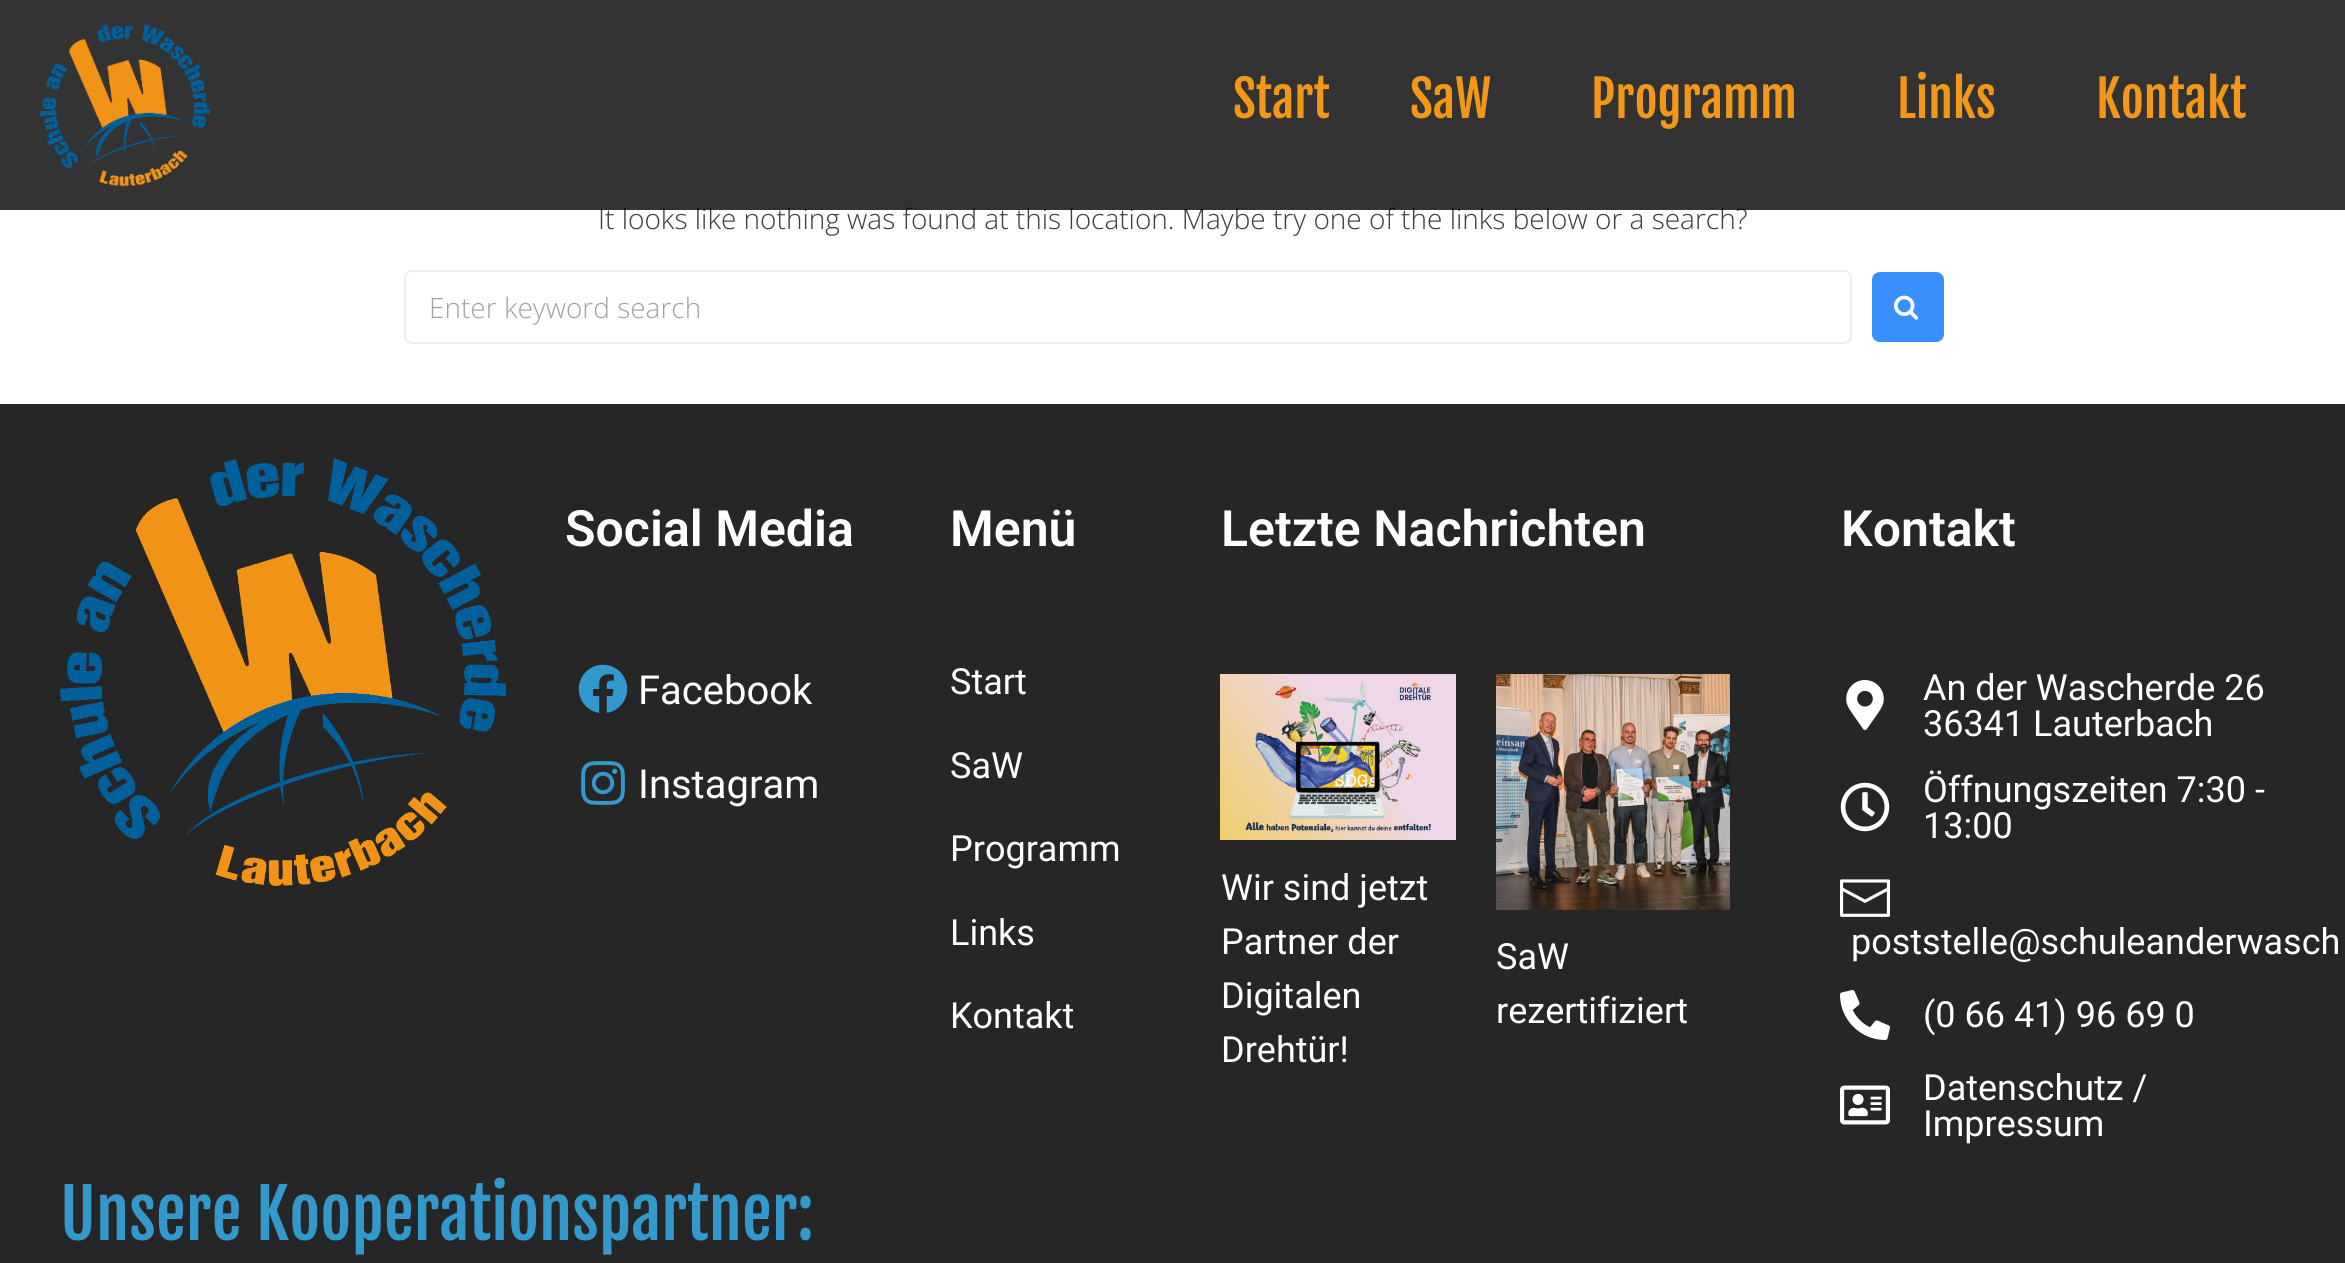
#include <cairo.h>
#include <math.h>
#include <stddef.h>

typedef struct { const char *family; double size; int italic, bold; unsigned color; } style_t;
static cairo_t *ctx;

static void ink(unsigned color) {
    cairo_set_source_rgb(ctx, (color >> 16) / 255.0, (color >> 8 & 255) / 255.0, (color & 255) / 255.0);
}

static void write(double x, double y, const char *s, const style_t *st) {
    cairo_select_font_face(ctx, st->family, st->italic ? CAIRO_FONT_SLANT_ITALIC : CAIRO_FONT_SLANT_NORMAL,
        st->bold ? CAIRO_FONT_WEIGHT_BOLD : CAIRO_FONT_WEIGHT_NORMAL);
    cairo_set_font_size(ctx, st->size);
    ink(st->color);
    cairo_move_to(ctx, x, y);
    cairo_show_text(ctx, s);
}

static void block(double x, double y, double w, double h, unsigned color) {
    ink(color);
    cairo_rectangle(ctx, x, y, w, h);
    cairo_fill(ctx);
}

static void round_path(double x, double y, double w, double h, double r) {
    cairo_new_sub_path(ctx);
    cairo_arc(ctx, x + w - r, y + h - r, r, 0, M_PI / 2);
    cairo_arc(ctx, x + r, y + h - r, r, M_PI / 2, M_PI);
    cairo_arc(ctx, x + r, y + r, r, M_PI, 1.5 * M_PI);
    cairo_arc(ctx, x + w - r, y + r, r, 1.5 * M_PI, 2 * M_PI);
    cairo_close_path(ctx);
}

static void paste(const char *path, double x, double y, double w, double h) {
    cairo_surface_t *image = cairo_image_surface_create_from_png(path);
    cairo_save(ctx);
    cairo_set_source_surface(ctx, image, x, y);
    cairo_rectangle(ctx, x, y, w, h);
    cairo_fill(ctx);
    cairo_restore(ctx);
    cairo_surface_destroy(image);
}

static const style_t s1 = {"Open Sans Light", 28, 0, 0, 0x3b3d42};
static const style_t s2 = {"Fjalla One", 50, 0, 0, 0xf29718};
static const style_t s3 = {"Open Sans Light", 28, 0, 0, 0xa1a2a4};
static const style_t s4 = {"Roboto SemiBold", 50, 0, 0, 0xffffff};
static const style_t s5 = {"Roboto", 40, 0, 0, 0xffffff};
static const style_t s6 = {"Roboto", 36, 0, 0, 0xffffff};
static const style_t s7 = {"Fjalla One", 67.25, 0, 0, 0x3399cc};

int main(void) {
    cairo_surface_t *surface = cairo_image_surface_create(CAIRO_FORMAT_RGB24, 2345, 1263);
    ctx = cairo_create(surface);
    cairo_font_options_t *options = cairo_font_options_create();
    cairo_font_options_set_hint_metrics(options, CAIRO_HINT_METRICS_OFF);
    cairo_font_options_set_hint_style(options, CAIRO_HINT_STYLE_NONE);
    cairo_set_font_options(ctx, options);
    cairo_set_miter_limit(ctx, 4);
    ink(0xffffff);
    cairo_paint(ctx);
    write(598, 229, "It looks like nothing was found at this location. Maybe try one of the links below or a search?", &s1);
    cairo_set_source_rgba(ctx, 0, 0, 0, 0.8);
    cairo_rectangle(ctx, 0, 0, 2345, 210);
    cairo_fill(ctx);
    paste("pic1.png", 40, 24, 170, 163);
    write(1233, 118, "Start", &s2);
    write(1410, 118, "SaW", &s2);
    write(1591, 118, "Programm", &s2);
    write(1897, 118, "Links", &s2);
    write(2096, 118, "Kontakt", &s2);
    round_path(405, 271, 1446, 72, 7);
    ink(0xebeced);
    cairo_stroke(ctx);
    write(429, 318, "Enter keyword search", &s3);
    ink(0x398ffc);
    round_path(1872, 272, 72, 70, 8);
    cairo_fill(ctx);
    paste("pic2.png", 1894, 295, 25, 25);
    block(0, 404, 2345, 859, 0x262626);
    paste("pic3.png", 60, 458, 446, 428);
    write(565, 546, "Social Media", &s4);
    paste("pic4.png", 578, 664, 50, 49);
    write(638, 704, "Facebook", &s5);
    paste("pic5.png", 581, 761, 44, 44);
    write(638, 798, "Instagram", &s5);
    write(950, 546, "Menü", &s4);
    write(950, 694, "Start", &s6);
    write(950, 778, "SaW", &s6);
    write(950, 861, "Programm", &s6);
    write(950, 945, "Links", &s6);
    write(950, 1028, "Kontakt", &s6);
    write(1221, 546, "Letzte Nachrichten", &s4);
    paste("pic6.png", 1220, 674, 236, 166);
    write(1221, 900, "Wir sind jetzt", &s6);
    write(1221, 954, "Partner der", &s6);
    write(1221, 1008, "Digitalen", &s6);
    write(1221, 1062, "Drehtür!", &s6);
    paste("pic7.png", 1496, 674, 234, 236);
    write(1496, 969, "SaW", &s6);
    write(1496, 1023, "rezertifiziert", &s6);
    write(1841, 546, "Kontakt", &s4);
    paste("pic8.png", 1846, 680, 38, 50);
    write(1923, 700, "An der Wascherde 26", &s6);
    write(1923, 736, "36341 Lauterbach", &s6);
    paste("pic9.png", 1840, 782, 50, 50);
    write(1923, 802, "Öffnungszeiten 7:30 -", &s6);
    write(1923, 838, "13:00", &s6);
    paste("pic10.png", 1840, 879, 50, 38);
    write(1851, 954, "poststelle@schuleanderwasch", &s6);
    paste("pic11.png", 1840, 990, 50, 50);
    write(1923, 1027, "(0 66 41) 96 69 0", &s6);
    paste("pic12.png", 1840, 1085, 50, 40);
    write(1923, 1100, "Datenschutz /", &s6);
    write(1923, 1136, "Impressum", &s6);
    write(60, 1240, "Unsere Kooperationspartner:", &s7);
    cairo_surface_write_to_png(surface, "screenshot.png");
    cairo_font_options_destroy(options);
    cairo_destroy(ctx);
    cairo_surface_destroy(surface);
    return 0;
}
